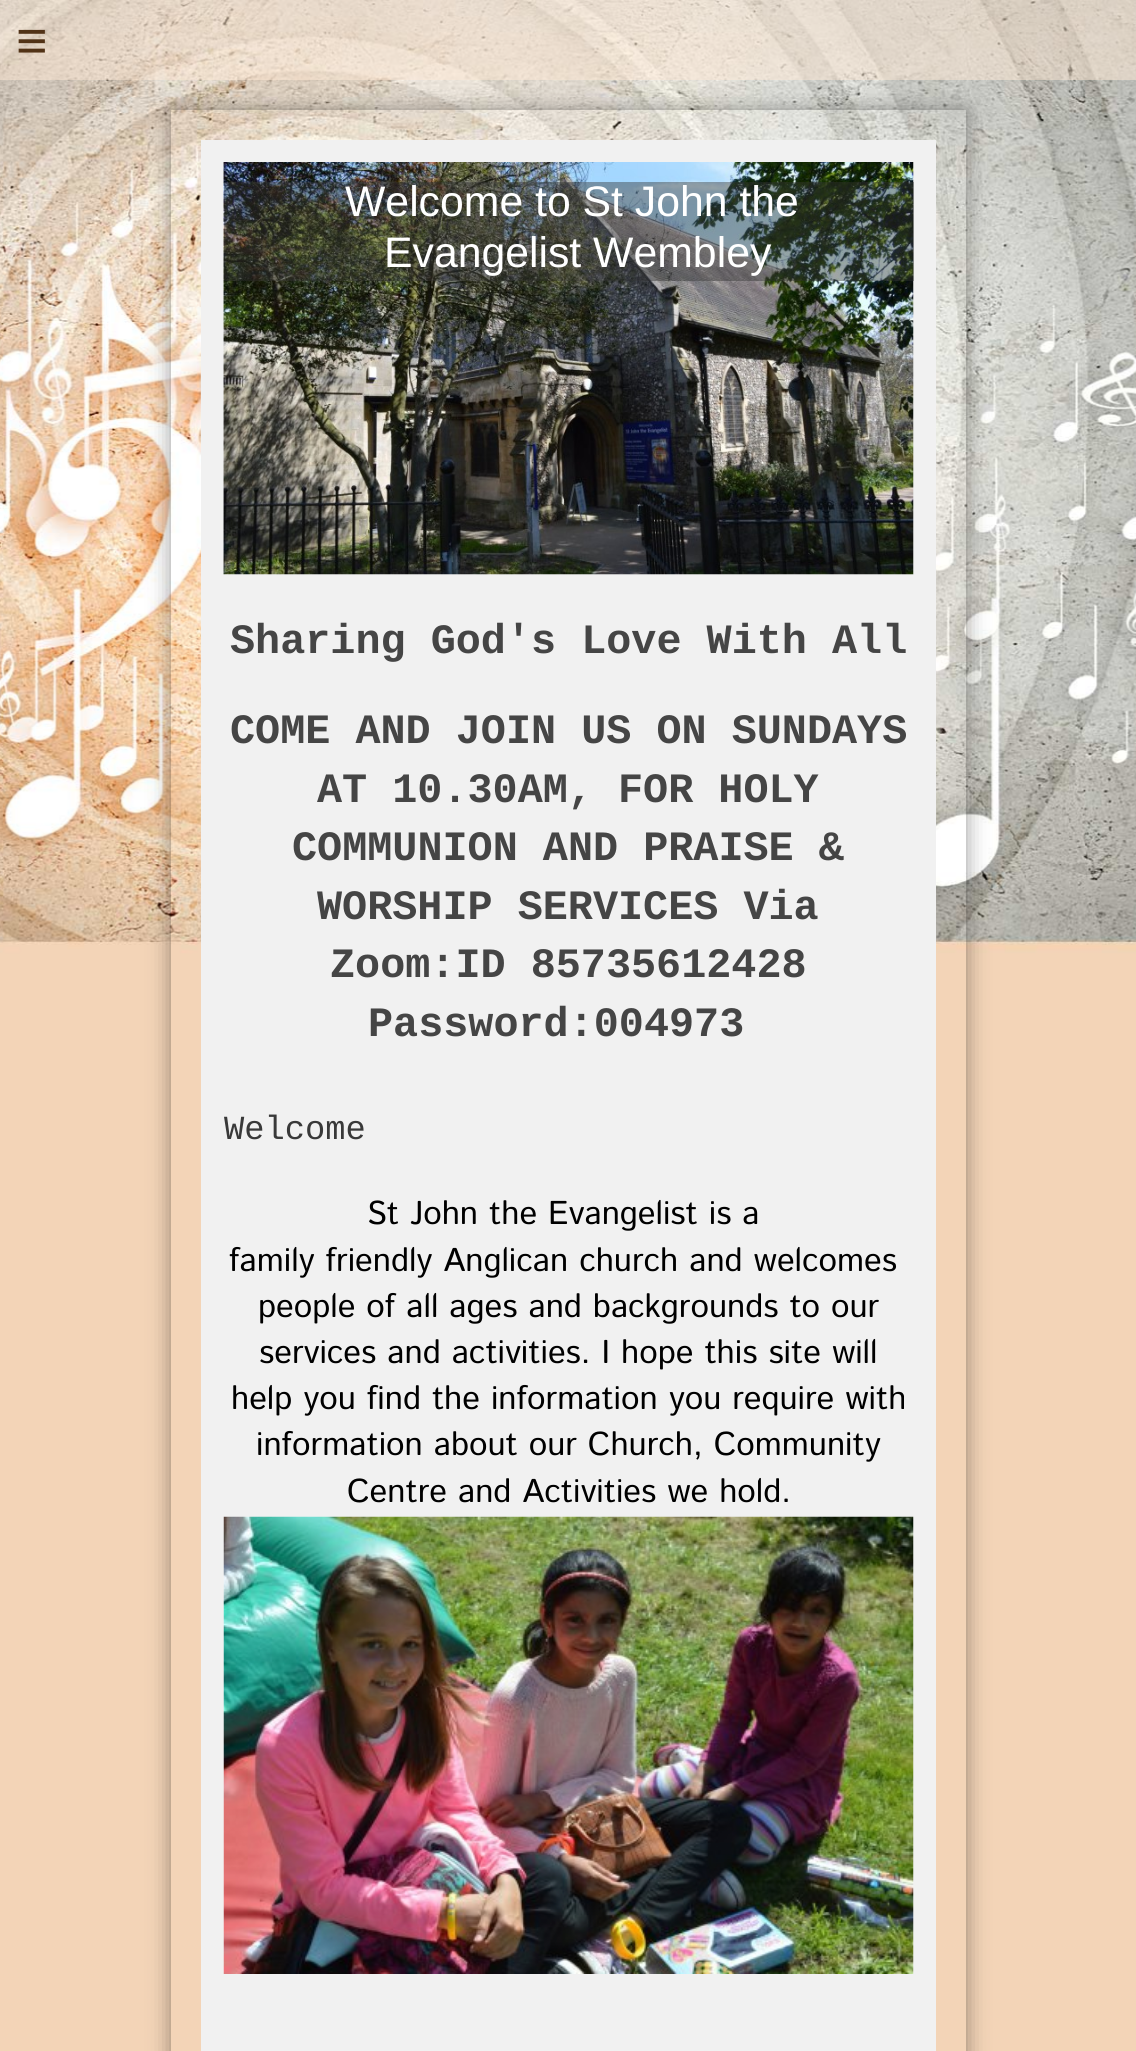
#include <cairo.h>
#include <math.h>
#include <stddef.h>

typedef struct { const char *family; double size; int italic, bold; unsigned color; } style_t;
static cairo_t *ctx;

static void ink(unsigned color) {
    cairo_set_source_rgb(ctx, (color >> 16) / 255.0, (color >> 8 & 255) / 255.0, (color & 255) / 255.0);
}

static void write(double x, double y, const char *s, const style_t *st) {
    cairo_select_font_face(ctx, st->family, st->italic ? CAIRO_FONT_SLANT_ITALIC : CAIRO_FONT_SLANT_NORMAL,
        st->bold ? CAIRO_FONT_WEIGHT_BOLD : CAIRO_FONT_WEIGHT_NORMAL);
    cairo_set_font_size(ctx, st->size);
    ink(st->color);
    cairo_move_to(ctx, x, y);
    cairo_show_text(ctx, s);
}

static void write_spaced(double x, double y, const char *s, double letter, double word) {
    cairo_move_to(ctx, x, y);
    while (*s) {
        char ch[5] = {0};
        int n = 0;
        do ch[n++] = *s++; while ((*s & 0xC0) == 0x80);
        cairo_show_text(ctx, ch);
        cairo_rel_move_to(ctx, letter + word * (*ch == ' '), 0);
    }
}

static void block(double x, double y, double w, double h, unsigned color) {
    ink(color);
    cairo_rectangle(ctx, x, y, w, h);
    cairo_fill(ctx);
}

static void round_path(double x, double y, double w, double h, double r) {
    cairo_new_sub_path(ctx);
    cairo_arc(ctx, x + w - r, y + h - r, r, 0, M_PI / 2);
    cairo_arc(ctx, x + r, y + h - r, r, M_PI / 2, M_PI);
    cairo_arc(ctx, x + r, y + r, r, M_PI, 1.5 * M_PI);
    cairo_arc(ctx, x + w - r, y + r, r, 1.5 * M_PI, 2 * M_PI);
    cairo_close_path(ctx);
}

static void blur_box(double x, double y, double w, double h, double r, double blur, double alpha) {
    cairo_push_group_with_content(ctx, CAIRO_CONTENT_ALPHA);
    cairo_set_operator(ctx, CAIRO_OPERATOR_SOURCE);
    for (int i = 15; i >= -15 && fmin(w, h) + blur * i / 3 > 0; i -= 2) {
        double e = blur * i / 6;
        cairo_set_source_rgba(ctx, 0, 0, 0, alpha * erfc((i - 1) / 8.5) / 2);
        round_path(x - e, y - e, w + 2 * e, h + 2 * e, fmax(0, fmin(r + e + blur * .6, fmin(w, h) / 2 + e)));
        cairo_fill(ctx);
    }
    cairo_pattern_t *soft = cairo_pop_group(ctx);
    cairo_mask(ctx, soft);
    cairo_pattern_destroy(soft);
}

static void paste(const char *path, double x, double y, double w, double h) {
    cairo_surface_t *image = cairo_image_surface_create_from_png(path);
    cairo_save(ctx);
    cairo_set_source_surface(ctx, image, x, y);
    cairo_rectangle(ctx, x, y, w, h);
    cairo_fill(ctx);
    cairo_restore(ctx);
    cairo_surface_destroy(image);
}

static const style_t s1 = {"Liberation Sans", 42.75, 0, 0, 0xffffff};
static const style_t s2 = {"Liberation Mono", 41.8, 0, 1, 0x454545};
static const style_t s3 = {"Liberation Mono", 33.75, 0, 0, 0x393939};
static const style_t s4 = {"Istok Web", 33, 0, 0, 0x000000};

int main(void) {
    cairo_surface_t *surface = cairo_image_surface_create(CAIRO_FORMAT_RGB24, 1136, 2051);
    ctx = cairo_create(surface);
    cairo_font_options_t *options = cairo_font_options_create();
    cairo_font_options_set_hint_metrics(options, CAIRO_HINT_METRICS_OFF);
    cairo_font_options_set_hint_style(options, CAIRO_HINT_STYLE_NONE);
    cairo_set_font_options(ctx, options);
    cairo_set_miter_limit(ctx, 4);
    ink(0xffffff);
    cairo_paint(ctx);
    paste("pic1.png", 0, 0, 1136, 2051);
    cairo_set_source_rgba(ctx, 1, 0.918, 0.843, 0.5);
    cairo_rectangle(ctx, 0, 0, 1136, 80);
    cairo_fill(ctx);
    cairo_select_font_face(ctx, "Liberation Sans", CAIRO_FONT_SLANT_NORMAL, CAIRO_FONT_WEIGHT_NORMAL);
    cairo_set_font_size(ctx, 54);
    ink(0x513216);
    write_spaced(16, 59, "≡", 16, 0);
    cairo_save(ctx);
    cairo_set_fill_rule(ctx, CAIRO_FILL_RULE_EVEN_ODD);
    cairo_new_path(ctx);
    cairo_move_to(ctx, 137, 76);
    cairo_line_to(ctx, 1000, 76);
    cairo_line_to(ctx, 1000, 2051);
    cairo_line_to(ctx, 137, 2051);
    cairo_close_path(ctx);
    cairo_move_to(ctx, 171, 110);
    cairo_line_to(ctx, 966, 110);
    cairo_line_to(ctx, 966, 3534);
    cairo_line_to(ctx, 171, 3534);
    cairo_close_path(ctx);
    cairo_clip(ctx);
    ink(0x000000);
    blur_box(171, 110, 795, 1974, 0, 11, 0.4);
    cairo_restore(ctx);
    block(201, 140, 735, 1911, 0xf1f1f1);
    paste("pic2.png", 223, 162, 1, 413);
    block(224, 162, 690, 413, 0xeeeeee);
    paste("pic3.png", 223, 162, 691, 413);
    cairo_set_source_rgba(ctx, 0.2, 0.2, 0.2, 0.43);
    cairo_rectangle(ctx, 224, 182, 690, 99);
    cairo_fill(ctx);
    write(345, 216, "Welcome to St John the", &s1);
    write(384, 267, "Evangelist Wembley", &s1);
    write(230, 653, "Sharing God's Love With All", &s2);
    write(230, 743, "COME AND JOIN US ON SUNDAYS", &s2);
    write(317, 802, "AT 10.30AM, FOR HOLY", &s2);
    write(292, 860, "COMMUNION AND PRAISE &", &s2);
    write(317, 919, "WORSHIP SERVICES Via", &s2);
    write(330, 977, "Zoom:ID 85735612428", &s2);
    write(368, 1036, "Password:004973", &s2);
    write(224, 1139, "Welcome", &s3);
    write(367, 1224, "St John the Evangelist is a", &s4);
    write(229, 1271, "family friendly Anglican church and welcomes", &s4);
    write(258, 1317, "people of all ages and backgrounds to our", &s4);
    write(259, 1363, "services and activities. I hope this site will", &s4);
    write(231, 1409, "help you find the information you require with", &s4);
    write(256, 1455, "information about our Church, Community", &s4);
    write(347, 1502, "Centre and Activities we hold.", &s4);
    paste("pic4.png", 223, 1516, 691, 458);
    cairo_surface_write_to_png(surface, "screenshot.png");
    cairo_font_options_destroy(options);
    cairo_destroy(ctx);
    cairo_surface_destroy(surface);
    return 0;
}
